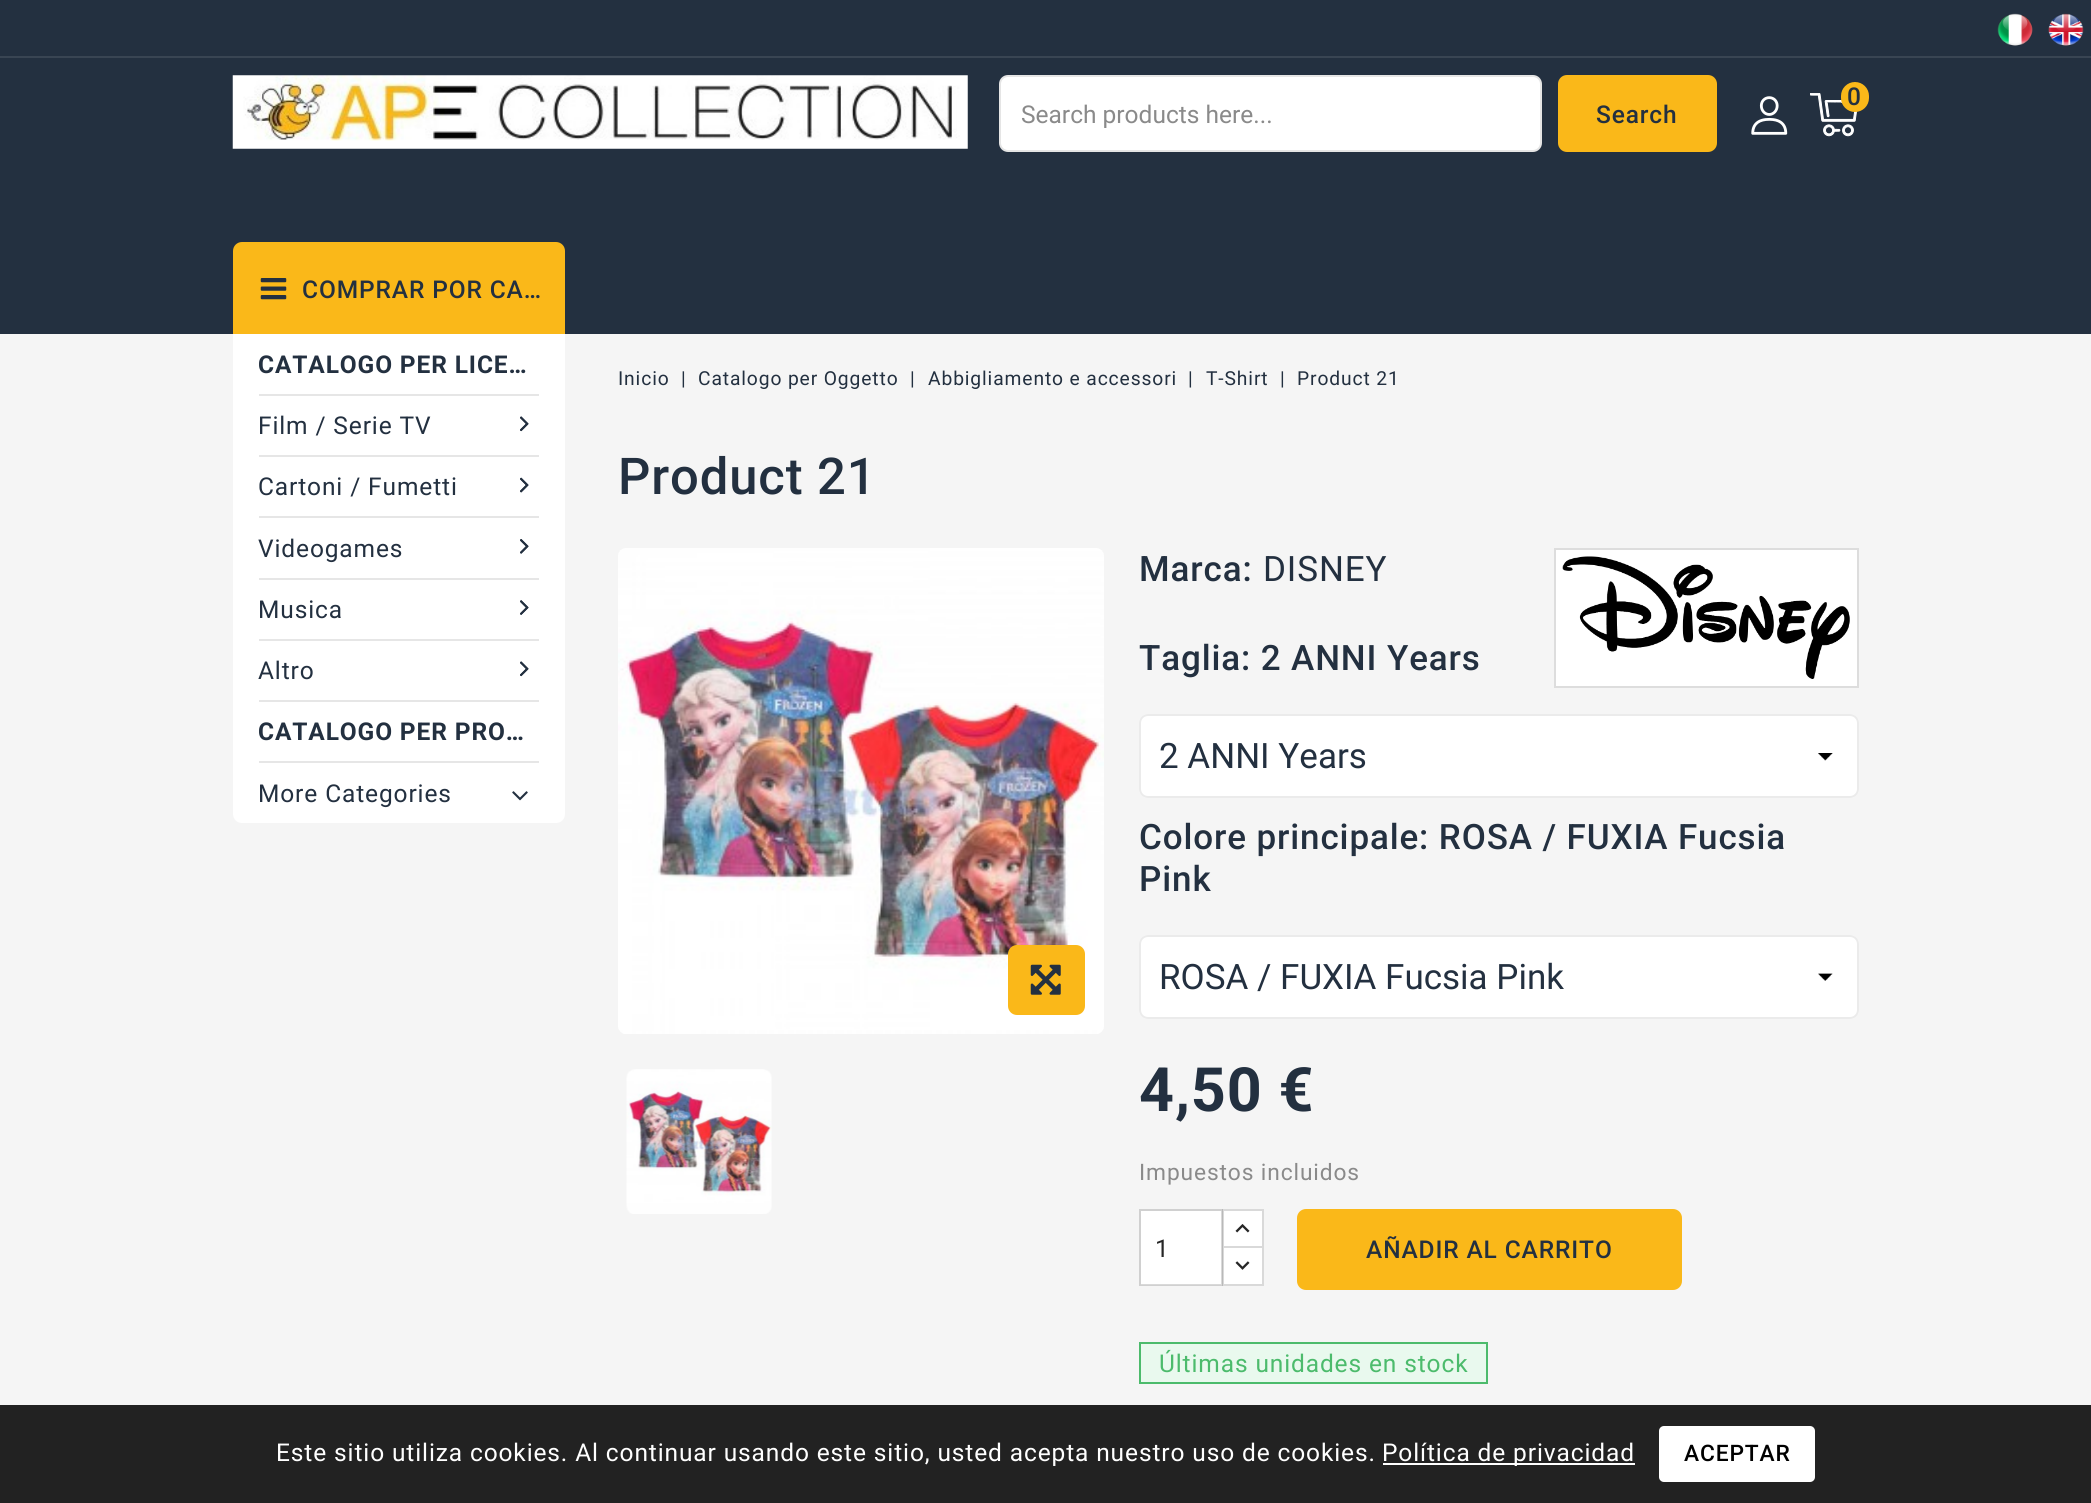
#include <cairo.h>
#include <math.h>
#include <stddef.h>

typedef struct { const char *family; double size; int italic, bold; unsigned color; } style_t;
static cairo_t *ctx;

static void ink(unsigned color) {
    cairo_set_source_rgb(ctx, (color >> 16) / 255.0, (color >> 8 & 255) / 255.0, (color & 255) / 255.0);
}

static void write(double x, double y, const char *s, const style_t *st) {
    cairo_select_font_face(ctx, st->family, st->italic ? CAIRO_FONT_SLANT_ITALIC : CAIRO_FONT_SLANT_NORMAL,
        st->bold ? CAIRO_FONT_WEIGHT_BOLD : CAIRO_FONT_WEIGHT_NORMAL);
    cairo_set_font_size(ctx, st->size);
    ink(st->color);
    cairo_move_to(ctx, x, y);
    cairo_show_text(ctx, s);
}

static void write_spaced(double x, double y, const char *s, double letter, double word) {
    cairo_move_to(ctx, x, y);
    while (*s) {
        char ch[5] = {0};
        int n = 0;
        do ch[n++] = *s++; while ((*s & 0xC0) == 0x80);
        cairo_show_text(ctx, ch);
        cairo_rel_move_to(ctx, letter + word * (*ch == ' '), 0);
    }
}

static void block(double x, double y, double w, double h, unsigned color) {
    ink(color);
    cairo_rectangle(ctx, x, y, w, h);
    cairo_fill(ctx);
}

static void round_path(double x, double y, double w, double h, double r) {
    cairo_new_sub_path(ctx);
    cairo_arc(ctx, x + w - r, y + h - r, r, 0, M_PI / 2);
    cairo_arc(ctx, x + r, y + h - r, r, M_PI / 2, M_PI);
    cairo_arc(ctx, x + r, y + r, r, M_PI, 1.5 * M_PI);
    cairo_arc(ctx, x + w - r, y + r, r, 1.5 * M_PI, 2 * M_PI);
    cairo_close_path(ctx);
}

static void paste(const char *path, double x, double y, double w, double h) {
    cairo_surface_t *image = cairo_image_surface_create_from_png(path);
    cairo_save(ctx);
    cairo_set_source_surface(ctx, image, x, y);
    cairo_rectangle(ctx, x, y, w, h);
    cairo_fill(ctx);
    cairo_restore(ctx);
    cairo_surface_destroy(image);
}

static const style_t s1 = {"Roboto", 24.5, 0, 0, 0x8a8a8a};
static const style_t s2 = {"Roboto Medium", 24.5, 0, 0, 0x233040};
static const style_t s3 = {"Roboto", 35, 0, 0, 0x233040};
static const style_t s4 = {"Roboto", 24.5, 0, 0, 0x262626};

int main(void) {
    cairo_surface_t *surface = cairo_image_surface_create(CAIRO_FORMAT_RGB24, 2091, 1503);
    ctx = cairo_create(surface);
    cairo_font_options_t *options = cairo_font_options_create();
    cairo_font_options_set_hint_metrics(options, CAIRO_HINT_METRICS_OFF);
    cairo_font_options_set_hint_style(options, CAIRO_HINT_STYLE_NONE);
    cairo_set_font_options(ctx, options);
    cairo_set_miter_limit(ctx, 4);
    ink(0xf5f5f5);
    cairo_paint(ctx);
    block(0, 0, 2091, 334, 0x233040);
    block(0, 56, 2091, 2, 0x394553);
    paste("pic1.png", 1997, 13, 36, 33);
    paste("pic2.png", 2048, 13, 36, 33);
    paste("pic3.png", 232, 75, 736, 74);
    ink(0xffffff);
    round_path(1000, 76, 541, 75, 8);
    cairo_fill_preserve(ctx);
    ink(0xe5e5e5);
    cairo_stroke(ctx);
    write(1021, 123, "Search products here...", &s1);
    ink(0xfab819);
    round_path(1558, 75, 159, 77, 9);
    cairo_fill(ctx);
    cairo_select_font_face(ctx, "Roboto Medium", CAIRO_FONT_SLANT_NORMAL, CAIRO_FONT_WEIGHT_NORMAL);
    ink(0x233040);
    write_spaced(1596, 123, "Search", 0.88, 0);
    paste("pic4.png", 1751, 96, 37, 39);
    paste("pic5.png", 1810, 93, 47, 44);
    ink(0xfab819);
    round_path(1841, 82, 28, 30, 14);
    cairo_fill(ctx);
    write(1847, 105, "0", &s2);
    ink(0xfab819);
    cairo_new_path(ctx);
    cairo_move_to(ctx, 242, 242);
    cairo_line_to(ctx, 556, 242);
    cairo_curve_to(ctx, 561, 242, 565, 246, 565, 251);
    cairo_line_to(ctx, 565, 334);
    cairo_line_to(ctx, 233, 334);
    cairo_line_to(ctx, 233, 251);
    cairo_curve_to(ctx, 233, 246, 237, 242, 242, 242);
    cairo_close_path(ctx);
    cairo_fill(ctx);
    paste("pic6.png", 260, 278, 27, 22);
    ink(0x233040);
    write_spaced(302, 298, "COMPRAR POR CA…", 0.88, 0);
    ink(0xffffff);
    cairo_new_path(ctx);
    cairo_move_to(ctx, 233, 334);
    cairo_line_to(ctx, 565, 334);
    cairo_line_to(ctx, 565, 814);
    cairo_curve_to(ctx, 565, 819, 561, 823, 556, 823);
    cairo_line_to(ctx, 242, 823);
    cairo_curve_to(ctx, 237, 823, 233, 819, 233, 814);
    cairo_close_path(ctx);
    cairo_fill(ctx);
    block(259, 394, 280, 2, 0xe6e6e6);
    cairo_select_font_face(ctx, "Roboto", CAIRO_FONT_SLANT_NORMAL, CAIRO_FONT_WEIGHT_BOLD);
    ink(0x233040);
    write_spaced(258, 373, "CATALOGO PER LICE…", 0.88, 0);
    block(259, 455, 280, 2, 0xe6e6e6);
    cairo_select_font_face(ctx, "Roboto", CAIRO_FONT_SLANT_NORMAL, CAIRO_FONT_WEIGHT_NORMAL);
    ink(0x233040);
    write_spaced(258, 434, "Film / Serie TV", 0.88, 0);
    paste("pic7.png", 520, 416, 9, 16);
    paste("pic8.png", 520, 416, 9, 16);
    block(259, 516, 280, 2, 0xe6e6e6);
    ink(0x233040);
    write_spaced(258, 495, "Cartoni / Fumetti", 0.88, 0);
    paste("pic9.png", 520, 477, 9, 16);
    paste("pic10.png", 520, 477, 9, 16);
    block(259, 578, 280, 2, 0xe6e6e6);
    ink(0x233040);
    write_spaced(258, 557, "Videogames", 0.88, 0);
    paste("pic11.png", 520, 539, 9, 15);
    paste("pic12.png", 520, 539, 9, 15);
    block(259, 639, 280, 2, 0xe6e6e6);
    ink(0x233040);
    write_spaced(258, 618, "Musica", 0.88, 0);
    paste("pic13.png", 520, 600, 9, 15);
    paste("pic14.png", 520, 600, 9, 15);
    block(259, 700, 280, 2, 0xe6e6e6);
    ink(0x233040);
    write_spaced(258, 679, "Altro", 0.88, 0);
    paste("pic7.png", 520, 661, 9, 16);
    paste("pic8.png", 520, 661, 9, 16);
    block(259, 761, 280, 2, 0xe6e6e6);
    cairo_select_font_face(ctx, "Roboto", CAIRO_FONT_SLANT_NORMAL, CAIRO_FONT_WEIGHT_BOLD);
    ink(0x233040);
    write_spaced(258, 740, "CATALOGO PER PRO…", 0.88, 0);
    cairo_select_font_face(ctx, "Roboto", CAIRO_FONT_SLANT_NORMAL, CAIRO_FONT_WEIGHT_NORMAL);
    write_spaced(258, 802, "More Categories", 0.88, 0);
    paste("pic15.png", 512, 791, 16, 10);
    cairo_set_font_size(ctx, 19.25);
    write_spaced(618, 385, "Inicio", 0.88, 0);
    write_spaced(681, 385, "|", 0.88, 0);
    write_spaced(698, 385, "Catalogo per Oggetto", 0.88, 0);
    write_spaced(910, 385, "|", 0.88, 0);
    write_spaced(928, 385, "Abbigliamento e accessori", 0.88, 0);
    write_spaced(1188, 385, "|", 0.88, 0);
    write_spaced(1206, 385, "T-Shirt", 0.88, 0);
    write_spaced(1280, 385, "|", 0.88, 0);
    write_spaced(1297, 385, "Product 21", 0.88, 0);
    cairo_select_font_face(ctx, "Roboto Medium", CAIRO_FONT_SLANT_NORMAL, CAIRO_FONT_WEIGHT_NORMAL);
    cairo_set_font_size(ctx, 50.75);
    write_spaced(618, 494, "Product 21", 0.88, 0);
    paste("pic16.png", 618, 548, 486, 486);
    ink(0xfab819);
    round_path(1008, 945, 77, 70, 9);
    cairo_fill(ctx);
    paste("pic17.png", 1030, 964, 31, 31);
    paste("pic18.png", 626, 1069, 146, 145);
    cairo_set_font_size(ctx, 35);
    ink(0x233040);
    write_spaced(1139, 581, "Marca:", 0.88, 0);
    cairo_select_font_face(ctx, "Roboto", CAIRO_FONT_SLANT_NORMAL, CAIRO_FONT_WEIGHT_NORMAL);
    write_spaced(1263, 581, "DISNEY", 0.88, 0);
    ink(0xffffff);
    cairo_rectangle(ctx, 1555, 549, 303, 138);
    cairo_fill_preserve(ctx);
    ink(0xdddddd);
    cairo_stroke(ctx);
    paste("pic19.png", 1562, 556, 288, 123);
    cairo_select_font_face(ctx, "Roboto Medium", CAIRO_FONT_SLANT_NORMAL, CAIRO_FONT_WEIGHT_NORMAL);
    ink(0x233040);
    write_spaced(1139, 670, "Taglia: 2 ANNI Years", 0.88, 0);
    ink(0xffffff);
    round_path(1139, 714, 720, 84, 9);
    cairo_fill(ctx);
    paste("pic20.png", 1818, 753, 15, 8);
    round_path(1140, 715, 718, 82, 8);
    ink(0xebebeb);
    cairo_stroke(ctx);
    write(1159, 768, "2 ANNI Years", &s3);
    cairo_select_font_face(ctx, "Roboto Medium", CAIRO_FONT_SLANT_NORMAL, CAIRO_FONT_WEIGHT_NORMAL);
    write_spaced(1139, 849, "Colore principale: ROSA / FUXIA Fucsia", 0.88, 0);
    write_spaced(1139, 891, "Pink", 0.88, 0);
    ink(0xffffff);
    round_path(1139, 935, 720, 84, 9);
    cairo_fill(ctx);
    paste("pic21.png", 1818, 973, 15, 8);
    round_path(1140, 936, 718, 82, 8);
    ink(0xebebeb);
    cairo_stroke(ctx);
    write(1159, 989, "ROSA / FUXIA Fucsia Pink", &s3);
    cairo_select_font_face(ctx, "Roboto", CAIRO_FONT_SLANT_NORMAL, CAIRO_FONT_WEIGHT_BOLD);
    cairo_set_font_size(ctx, 61);
    write_spaced(1139, 1111, "4,50 €", 0.88, 0);
    cairo_select_font_face(ctx, "Roboto", CAIRO_FONT_SLANT_NORMAL, CAIRO_FONT_WEIGHT_NORMAL);
    cairo_set_font_size(ctx, 22.75);
    ink(0x8a8a8a);
    write_spaced(1139, 1180, "Impuestos incluidos", 0.88, 0);
    block(1141, 1211, 81, 74, 0xffffff);
    block(1224, 1211, 38, 35, 0xffffff);
    cairo_rectangle(ctx, 1223, 1210, 40, 39);
    ink(0xd9d9d9);
    cairo_stroke(ctx);
    ink(0xffffff);
    cairo_rectangle(ctx, 1223, 1247, 40, 38);
    cairo_fill_preserve(ctx);
    ink(0xd9d9d9);
    cairo_stroke(ctx);
    cairo_rectangle(ctx, 1140, 1210, 82, 75);
    cairo_set_source_rgba(ctx, 0, 0, 0, 0.15);
    cairo_stroke(ctx);
    write(1155, 1257, "1", &s4);
    paste("pic22.png", 1235, 1224, 15, 9);
    paste("pic23.png", 1235, 1261, 15, 9);
    ink(0xfab819);
    round_path(1298, 1210, 383, 79, 8);
    cairo_fill_preserve(ctx);
    cairo_stroke(ctx);
    cairo_select_font_face(ctx, "Roboto Medium", CAIRO_FONT_SLANT_NORMAL, CAIRO_FONT_WEIGHT_NORMAL);
    ink(0x233040);
    write_spaced(1366, 1258, "AÑADIR AL CARRITO", 0.88, 0);
    ink(0xe9f9ee);
    cairo_rectangle(ctx, 1140, 1343, 347, 40);
    cairo_fill_preserve(ctx);
    ink(0x4cbb6c);
    cairo_stroke(ctx);
    cairo_select_font_face(ctx, "Roboto", CAIRO_FONT_SLANT_NORMAL, CAIRO_FONT_WEIGHT_NORMAL);
    write_spaced(1159, 1372, "Últimas unidades en stock", 0.88, 0);
    block(0, 1405, 2091, 98, 0x222222);
    ink(0xffffff);
    write_spaced(276, 1461, "Este sitio utiliza cookies. Al continuar usando este sitio, usted acepta nuestro uso de cookies.", 0.88, 0);
    block(1383, 1463, 252, 2, 0xffffff);
    write_spaced(1382, 1461, "Política de privacidad", 0.88, 0);
    round_path(1659, 1426, 156, 56, 5);
    cairo_fill(ctx);
    cairo_select_font_face(ctx, "Roboto Medium", CAIRO_FONT_SLANT_NORMAL, CAIRO_FONT_WEIGHT_NORMAL);
    cairo_set_font_size(ctx, 22.75);
    ink(0x000000);
    write_spaced(1684, 1461, "ACEPTAR", 0.88, 0);
    cairo_surface_write_to_png(surface, "screenshot.png");
    cairo_font_options_destroy(options);
    cairo_destroy(ctx);
    cairo_surface_destroy(surface);
    return 0;
}
